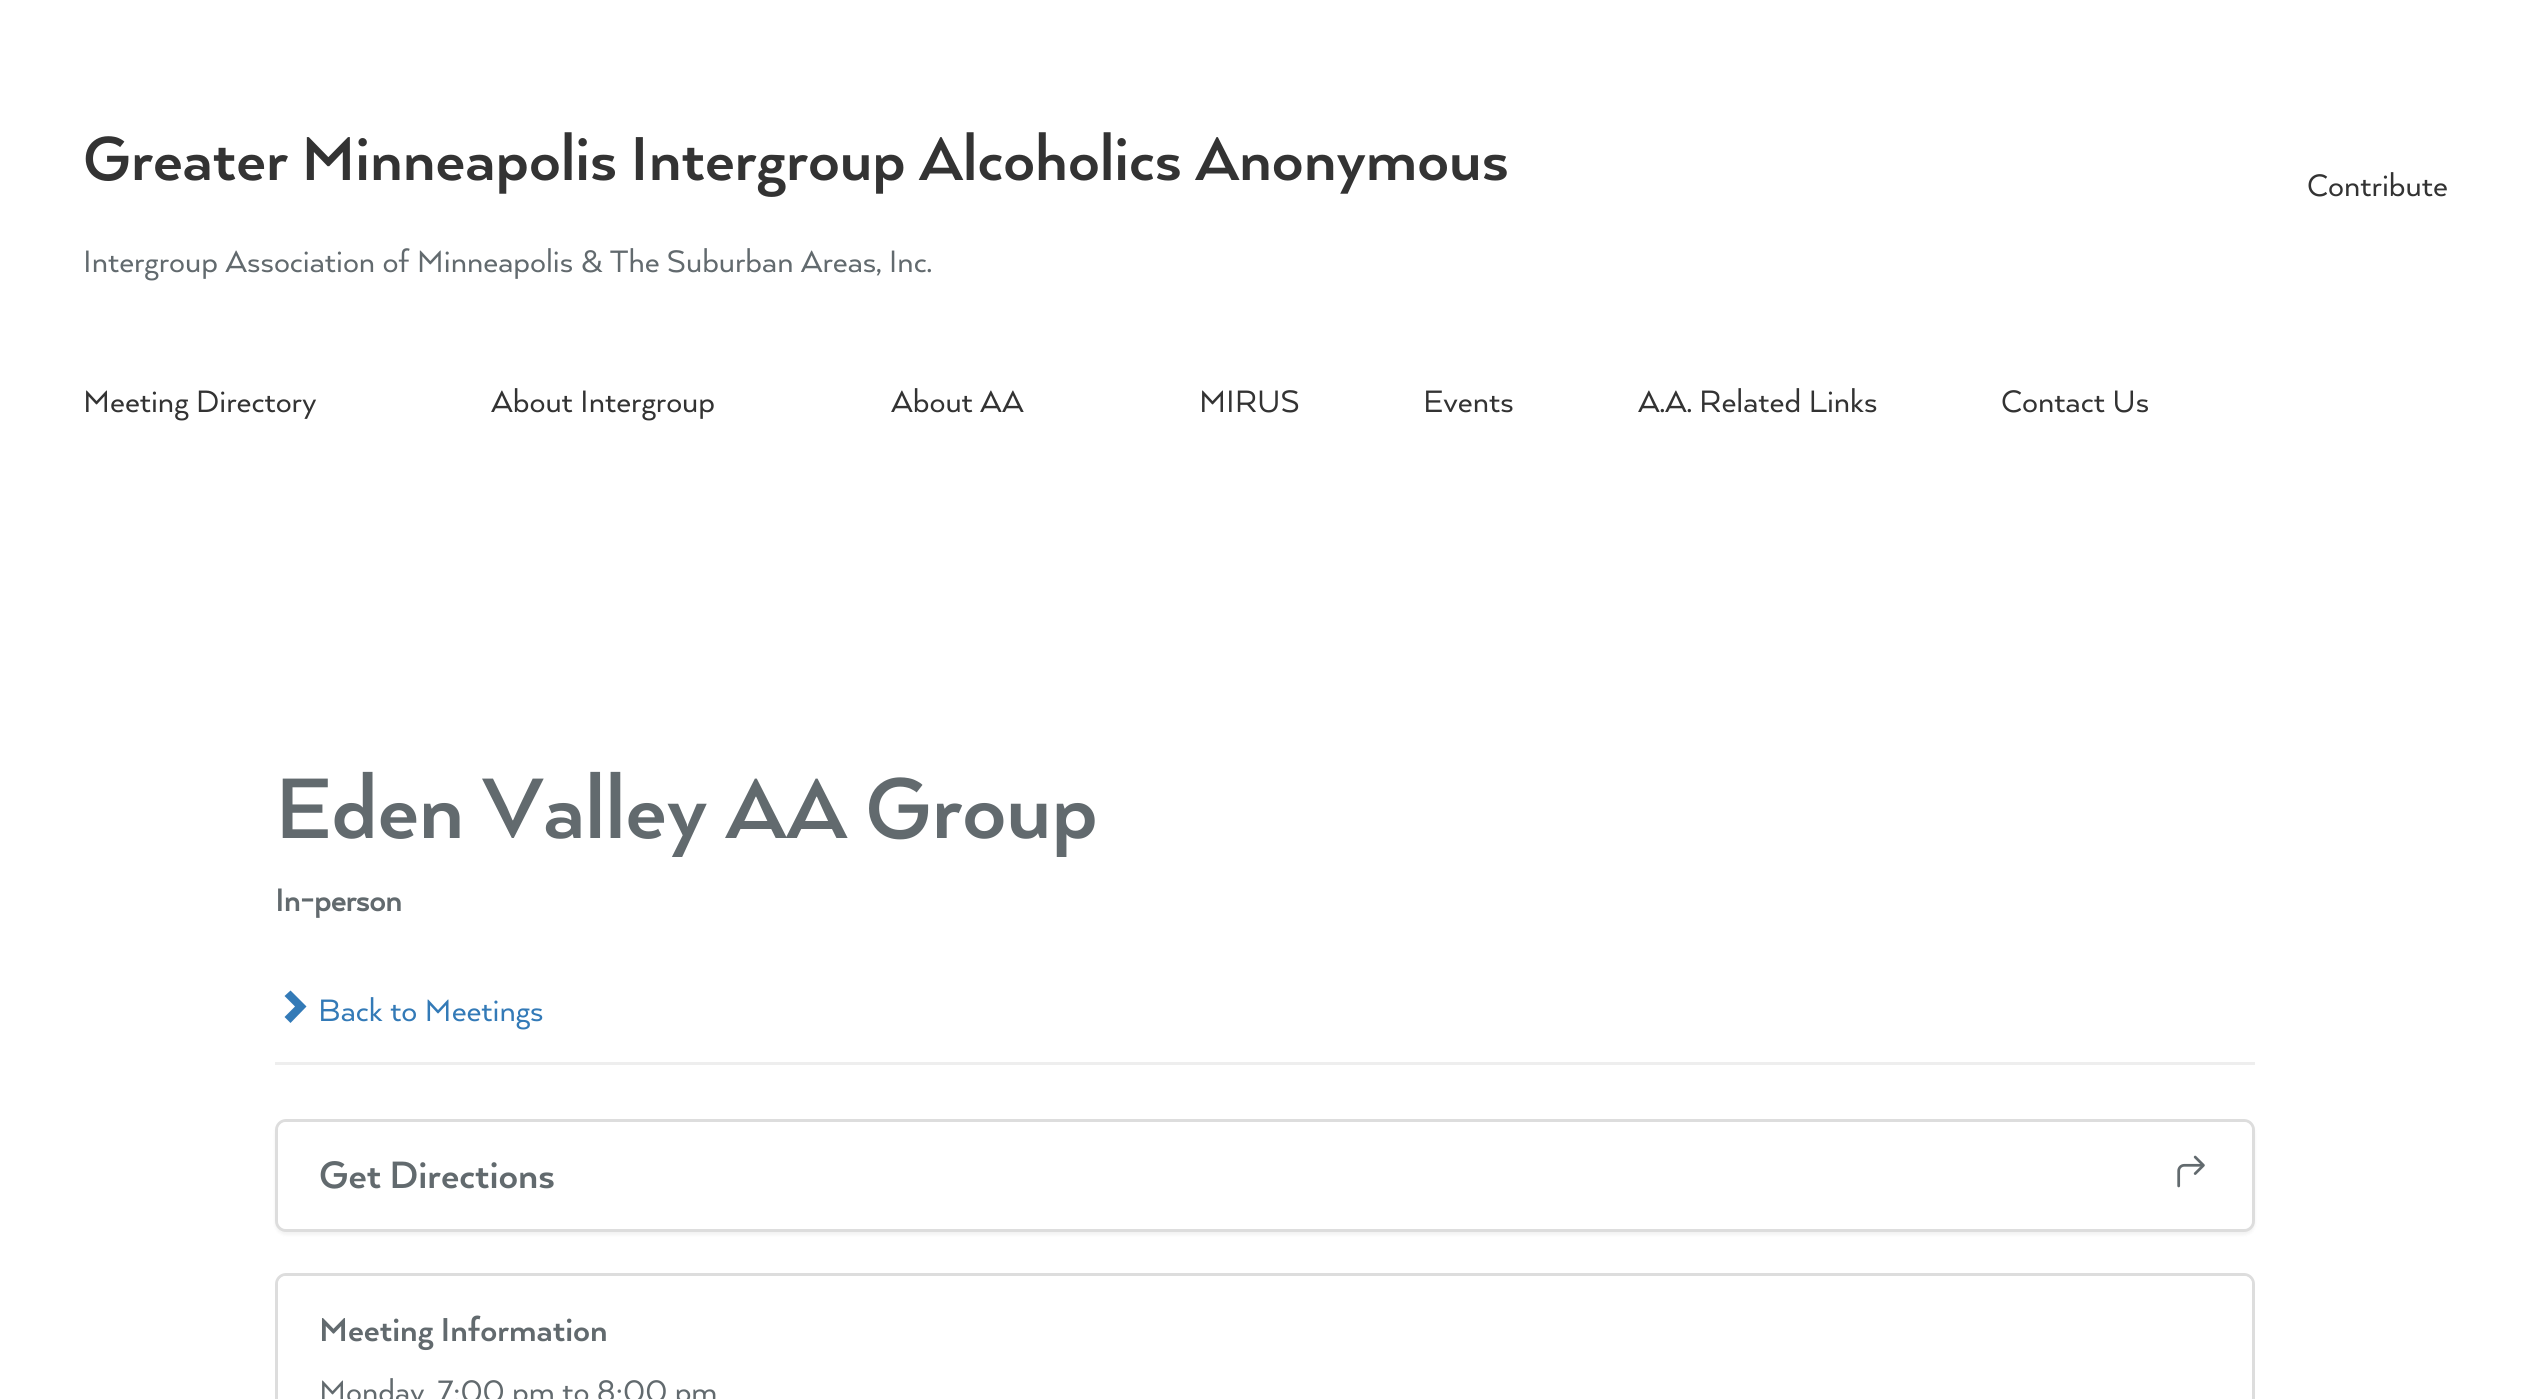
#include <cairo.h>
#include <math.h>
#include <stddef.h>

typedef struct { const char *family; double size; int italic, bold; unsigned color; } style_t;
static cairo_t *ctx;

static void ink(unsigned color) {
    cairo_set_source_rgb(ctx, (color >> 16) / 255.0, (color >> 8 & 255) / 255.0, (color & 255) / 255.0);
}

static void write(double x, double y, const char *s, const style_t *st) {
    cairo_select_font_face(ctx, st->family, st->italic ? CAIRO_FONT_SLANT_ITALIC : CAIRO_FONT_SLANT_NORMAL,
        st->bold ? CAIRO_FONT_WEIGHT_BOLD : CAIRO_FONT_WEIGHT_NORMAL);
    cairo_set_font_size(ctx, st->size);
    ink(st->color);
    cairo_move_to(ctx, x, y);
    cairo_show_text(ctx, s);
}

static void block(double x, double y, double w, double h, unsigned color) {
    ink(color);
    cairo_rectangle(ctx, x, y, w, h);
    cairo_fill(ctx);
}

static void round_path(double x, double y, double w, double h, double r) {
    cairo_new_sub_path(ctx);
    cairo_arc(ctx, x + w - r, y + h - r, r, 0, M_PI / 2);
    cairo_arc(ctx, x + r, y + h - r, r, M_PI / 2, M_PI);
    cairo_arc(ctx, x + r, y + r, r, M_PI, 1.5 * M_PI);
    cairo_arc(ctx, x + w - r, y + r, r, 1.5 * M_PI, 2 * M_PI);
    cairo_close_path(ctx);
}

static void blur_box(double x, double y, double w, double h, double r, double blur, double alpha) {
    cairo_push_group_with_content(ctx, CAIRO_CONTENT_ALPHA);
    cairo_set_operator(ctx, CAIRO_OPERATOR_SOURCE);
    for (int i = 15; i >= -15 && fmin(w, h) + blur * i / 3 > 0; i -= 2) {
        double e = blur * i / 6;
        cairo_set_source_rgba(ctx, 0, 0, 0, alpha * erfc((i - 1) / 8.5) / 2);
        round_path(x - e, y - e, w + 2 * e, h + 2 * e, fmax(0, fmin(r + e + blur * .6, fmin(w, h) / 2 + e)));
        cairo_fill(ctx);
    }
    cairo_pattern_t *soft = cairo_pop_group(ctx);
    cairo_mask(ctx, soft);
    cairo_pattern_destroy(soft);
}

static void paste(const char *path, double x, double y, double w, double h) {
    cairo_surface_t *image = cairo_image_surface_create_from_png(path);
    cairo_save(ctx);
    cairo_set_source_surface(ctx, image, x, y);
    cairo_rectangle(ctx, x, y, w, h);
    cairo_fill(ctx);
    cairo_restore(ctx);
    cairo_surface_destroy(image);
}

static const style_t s1 = {"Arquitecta", 71.5, 0, 1, 0x333333};
static const style_t s2 = {"Arquitecta", 35.75, 0, 0, 0x626a6e};
static const style_t s3 = {"Arquitecta", 35.75, 0, 0, 0x333333};
static const style_t s4 = {"Arquitecta", 99, 0, 1, 0x626a6e};
static const style_t s5 = {"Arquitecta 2", 35.75, 0, 1, 0x626a6e};
static const style_t s6 = {"Arquitecta", 35.75, 0, 0, 0x337ab7};
static const style_t s7 = {"Arquitecta", 44, 0, 1, 0x626a6e};
static const style_t s8 = {"Arquitecta", 38.25, 0, 1, 0x626a6e};

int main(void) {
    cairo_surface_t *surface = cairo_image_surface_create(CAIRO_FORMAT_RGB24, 2530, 1399);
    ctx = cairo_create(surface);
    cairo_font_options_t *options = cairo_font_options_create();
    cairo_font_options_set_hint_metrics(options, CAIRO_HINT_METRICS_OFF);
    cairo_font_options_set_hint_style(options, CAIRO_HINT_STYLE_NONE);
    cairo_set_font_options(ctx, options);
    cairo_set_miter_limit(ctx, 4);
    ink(0xffffff);
    cairo_paint(ctx);
    write(83, 180, "Greater Minneapolis Intergroup Alcoholics Anonymous", &s1);
    write(83, 272, "Intergroup Association of Minneapolis & The Suburban Areas, Inc.", &s2);
    write(2307, 196, "Contribute", &s3);
    write(83, 412, "Meeting Directory", &s3);
    write(491, 412, "About Intergroup", &s3);
    write(891, 412, "About AA", &s3);
    write(1199, 412, "MIRUS", &s3);
    write(1423, 412, "Events", &s3);
    write(1638, 412, "A.A. Related Links", &s3);
    write(2001, 412, "Contact Us", &s3);
    block(275, 1062, 1980, 3, 0xeeeeee);
    write(275, 838, "Eden Valley AA Group", &s4);
    write(275, 911, "In-person", &s5);
    ink(0x337ab7);
    cairo_new_path(ctx);
    cairo_move_to(ctx, 306.5, 1006.5);
    cairo_line_to(ctx, 290.5, 1023);
    cairo_line_to(ctx, 284.5, 1017);
    cairo_line_to(ctx, 295, 1006.5);
    cairo_line_to(ctx, 284.5, 996);
    cairo_line_to(ctx, 290.5, 990.5);
    cairo_close_path(ctx);
    cairo_fill(ctx);
    write(318, 1021, "Back to Meetings", &s6);
    ink(0x000000);
    blur_box(275, 1122, 1980, 113, 11, 1.5, 0.05);
    round_path(276.5, 1120.5, 1977, 110, 9.5);
    ink(0xdddddd);
    cairo_set_line_width(ctx, 3);
    cairo_stroke(ctx);
    ink(0xffffff);
    round_path(278, 1122, 1974, 107, 8);
    cairo_fill(ctx);
    write(319, 1188, "Get Directions", &s7);
    paste("pic1.png", 2177, 1155, 28, 33);
    round_path(276.5, 1274.5, 1977, 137, 9.5);
    ink(0xdddddd);
    cairo_stroke(ctx);
    ink(0xffffff);
    cairo_new_path(ctx);
    cairo_move_to(ctx, 286, 1276);
    cairo_line_to(ctx, 2244, 1276);
    cairo_curve_to(ctx, 2248.5, 1276, 2252, 1279.5, 2252, 1284);
    cairo_line_to(ctx, 2252, 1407);
    cairo_line_to(ctx, 278, 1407);
    cairo_line_to(ctx, 278, 1284);
    cairo_curve_to(ctx, 278, 1279.5, 281.5, 1276, 286, 1276);
    cairo_close_path(ctx);
    cairo_fill(ctx);
    write(319, 1341, "Meeting Information", &s8);
    write(319, 1402, "Monday", &s2);
    write(437, 1402, "7:00 pm to 8:00 pm", &s2);
    cairo_surface_write_to_png(surface, "screenshot.png");
    cairo_font_options_destroy(options);
    cairo_destroy(ctx);
    cairo_surface_destroy(surface);
    return 0;
}
